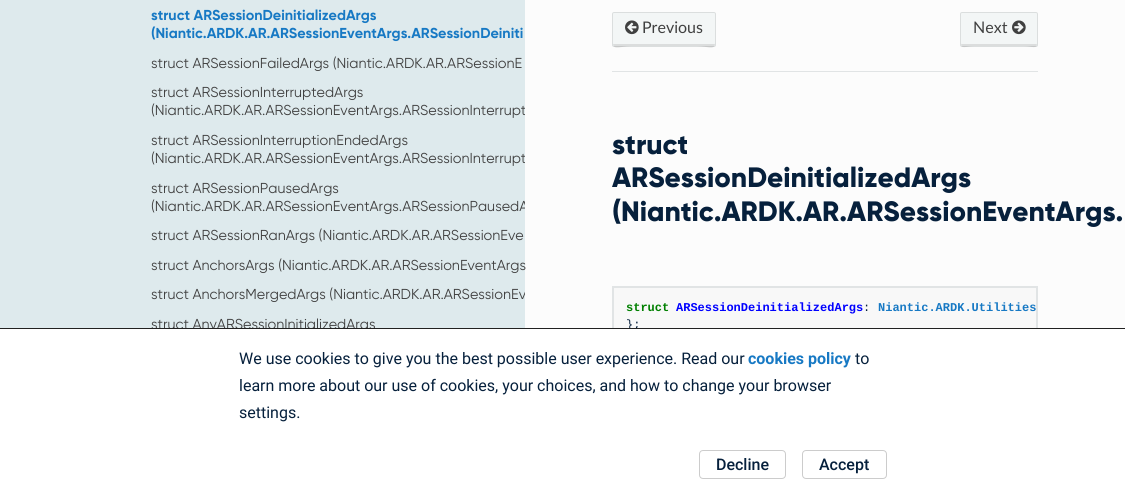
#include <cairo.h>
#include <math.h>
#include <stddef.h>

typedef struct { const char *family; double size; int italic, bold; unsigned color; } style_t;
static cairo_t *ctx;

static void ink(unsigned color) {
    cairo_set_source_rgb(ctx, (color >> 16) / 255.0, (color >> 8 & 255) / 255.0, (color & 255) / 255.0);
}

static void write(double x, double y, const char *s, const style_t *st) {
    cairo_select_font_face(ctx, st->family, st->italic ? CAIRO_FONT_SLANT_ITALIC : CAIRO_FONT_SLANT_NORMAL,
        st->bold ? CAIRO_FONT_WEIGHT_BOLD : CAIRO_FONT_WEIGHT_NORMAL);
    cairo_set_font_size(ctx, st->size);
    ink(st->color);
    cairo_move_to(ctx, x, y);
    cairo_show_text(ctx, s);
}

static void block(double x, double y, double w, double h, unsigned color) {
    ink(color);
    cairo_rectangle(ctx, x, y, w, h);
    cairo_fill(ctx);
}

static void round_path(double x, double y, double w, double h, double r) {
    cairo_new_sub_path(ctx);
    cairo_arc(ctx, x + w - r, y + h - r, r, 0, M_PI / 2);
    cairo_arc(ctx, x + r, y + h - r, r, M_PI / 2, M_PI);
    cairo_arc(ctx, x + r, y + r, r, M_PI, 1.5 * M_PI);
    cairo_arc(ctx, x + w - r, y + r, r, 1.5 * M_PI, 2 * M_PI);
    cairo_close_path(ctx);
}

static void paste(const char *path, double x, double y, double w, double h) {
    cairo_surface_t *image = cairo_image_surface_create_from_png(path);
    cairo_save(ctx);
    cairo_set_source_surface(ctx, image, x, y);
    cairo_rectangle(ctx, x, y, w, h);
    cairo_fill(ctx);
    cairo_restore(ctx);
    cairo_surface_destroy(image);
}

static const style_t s1 = {"Gilroy", 14.4, 0, 1, 0x1779c4};
static const style_t s2 = {"gilroy", 14.4, 0, 0, 0x404040};
static const style_t s3 = {"Lato", 16, 0, 0, 0x404040};
static const style_t s4 = {"Gilroy ExtraBold", 28, 0, 0, 0x06203c};
static const style_t s5 = {"Liberation Mono", 12, 0, 1, 0x008000};
static const style_t s6 = {"Liberation Mono", 12, 0, 1, 0x0000ff};
static const style_t s7 = {"Liberation Mono", 12, 0, 0, 0x06203c};
static const style_t s8 = {"Liberation Mono", 12, 0, 1, 0x1779c4};
static const style_t s9 = {"Roboto", 16, 0, 0, 0x06203c};
static const style_t s10 = {"Roboto", 16, 0, 1, 0x1779c4};
static const style_t s11 = {"Roboto Medium", 16, 0, 0, 0x06203c};

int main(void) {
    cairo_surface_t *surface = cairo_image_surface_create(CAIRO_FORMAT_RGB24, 1125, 495);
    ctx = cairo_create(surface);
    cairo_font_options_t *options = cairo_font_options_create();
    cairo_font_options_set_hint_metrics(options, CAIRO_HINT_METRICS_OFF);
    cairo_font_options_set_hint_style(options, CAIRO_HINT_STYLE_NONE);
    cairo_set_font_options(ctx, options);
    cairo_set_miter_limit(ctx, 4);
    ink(0xfcfcfc);
    cairo_paint(ctx);
    block(0, 0, 525, 328, 0xdeeaed);
    write(151, 20, "struct ARSessionDeinitializedArgs", &s1);
    write(151, 38, "(Niantic.ARDK.AR.ARSessionEventArgs.ARSessionDeiniti", &s1);
    write(151, 68, "struct ARSessionFailedArgs (Niantic.ARDK.AR.ARSessionE", &s2);
    write(151, 97, "struct ARSessionInterruptedArgs", &s2);
    cairo_save(ctx);
    cairo_rectangle(ctx, 0, 0, 525, 463);
    cairo_clip(ctx);
    write(151, 115, "(Niantic.ARDK.AR.ARSessionEventArgs.ARSessionInterrupt", &s2);
    cairo_restore(ctx);
    write(151, 145, "struct ARSessionInterruptionEndedArgs", &s2);
    cairo_save(ctx);
    cairo_rectangle(ctx, 0, 0, 525, 463);
    cairo_clip(ctx);
    write(151, 163, "(Niantic.ARDK.AR.ARSessionEventArgs.ARSessionInterrupt", &s2);
    cairo_restore(ctx);
    write(151, 193, "struct ARSessionPausedArgs", &s2);
    cairo_save(ctx);
    cairo_rectangle(ctx, 0, 0, 525, 463);
    cairo_clip(ctx);
    write(151, 211, "(Niantic.ARDK.AR.ARSessionEventArgs.ARSessionPausedA", &s2);
    cairo_restore(ctx);
    write(151, 240, "struct ARSessionRanArgs (Niantic.ARDK.AR.ARSessionEve", &s2);
    cairo_save(ctx);
    cairo_rectangle(ctx, 0, 0, 525, 463);
    cairo_clip(ctx);
    write(151, 270, "struct AnchorsArgs (Niantic.ARDK.AR.ARSessionEventArgs", &s2);
    write(151, 299, "struct AnchorsMergedArgs (Niantic.ARDK.AR.ARSessionEv", &s2);
    cairo_restore(ctx);
    write(151, 329, "struct AnyARSessionInitializedArgs", &s2);
    ink(0xf3f6f6);
    round_path(612, 12, 104, 35, 2);
    cairo_fill(ctx);
    ink(0xdbdddd);
    cairo_new_path(ctx);
    cairo_move_to(ctx, 613, 43);
    cairo_curve_to(ctx, 613, 51, 621, 46, 631, 46);
    cairo_line_to(ctx, 697, 46);
    cairo_curve_to(ctx, 707, 46, 715, 51, 715, 43);
    cairo_curve_to(ctx, 715, 44, 715, 44, 714, 44);
    cairo_line_to(ctx, 614, 44);
    cairo_curve_to(ctx, 613, 44, 613, 44, 613, 43);
    cairo_close_path(ctx);
    cairo_fill(ctx);
    round_path(612.5, 12.5, 103, 34, 1.5);
    cairo_set_source_rgba(ctx, 0, 0, 0, 0.1);
    cairo_set_line_width(ctx, 1);
    cairo_stroke(ctx);
    paste("pic1.png", 625, 20, 14, 15);
    write(642, 33, "Previous", &s3);
    ink(0xf3f6f6);
    round_path(960, 12, 78, 35, 2);
    cairo_fill(ctx);
    ink(0xdbdddd);
    cairo_new_path(ctx);
    cairo_move_to(ctx, 961, 43);
    cairo_curve_to(ctx, 961, 50, 966, 46, 974, 46);
    cairo_line_to(ctx, 1024, 46);
    cairo_curve_to(ctx, 1032, 46, 1037, 50, 1037, 43);
    cairo_curve_to(ctx, 1037, 44, 1037, 44, 1036, 44);
    cairo_line_to(ctx, 961, 44);
    cairo_close_path(ctx);
    cairo_fill(ctx);
    round_path(960.5, 12.5, 77, 34, 1.5);
    cairo_set_source_rgba(ctx, 0, 0, 0, 0.1);
    cairo_stroke(ctx);
    write(973, 33, "Next", &s3);
    paste("pic2.png", 1012, 20, 14, 15);
    block(612, 71, 426, 1, 0xe1e4e5);
    write(612, 154, "struct", &s4);
    write(612, 187, "ARSessionDeinitializedArgs", &s4);
    write(612, 221, "(Niantic.ARDK.AR.ARSessionEventArgs.", &s4);
    block(614, 288, 422, 40, 0xf8f8f8);
    cairo_rectangle(ctx, 612.5, 286.5, 425, 61);
    ink(0xe1e4e5);
    cairo_stroke(ctx);
    cairo_rectangle(ctx, 613.5, 287.5, 423, 59);
    cairo_stroke(ctx);
    write(626, 311, "struct", &s5);
    write(676, 311, "ARSessionDeinitializedArgs", &s6);
    write(863, 311, ":", &s7);
    write(878, 311, "Niantic.ARDK.Utilities", &s8);
    write(626, 328, "};", &s7);
    block(0, 329, 1125, 166, 0xffffff);
    block(0, 328, 1125, 1, 0x212121);
    write(239, 364, "We use cookies to give you the best possible user experience. Read our", &s9);
    write(748, 364, "cookies policy", &s10);
    write(855, 364, "to", &s9);
    write(239, 391, "learn more about our use of cookies, your choices, and how to change your browser", &s9);
    write(239, 418, "settings.", &s9);
    round_path(699.5, 450.5, 86, 28, 3.5);
    ink(0xcccccc);
    cairo_stroke(ctx);
    write(716, 470, "Decline", &s11);
    round_path(802.5, 450.5, 84, 28, 3.5);
    ink(0xcccccc);
    cairo_stroke(ctx);
    write(819, 470, "Accept", &s11);
    cairo_surface_write_to_png(surface, "screenshot.png");
    cairo_font_options_destroy(options);
    cairo_destroy(ctx);
    cairo_surface_destroy(surface);
    return 0;
}
